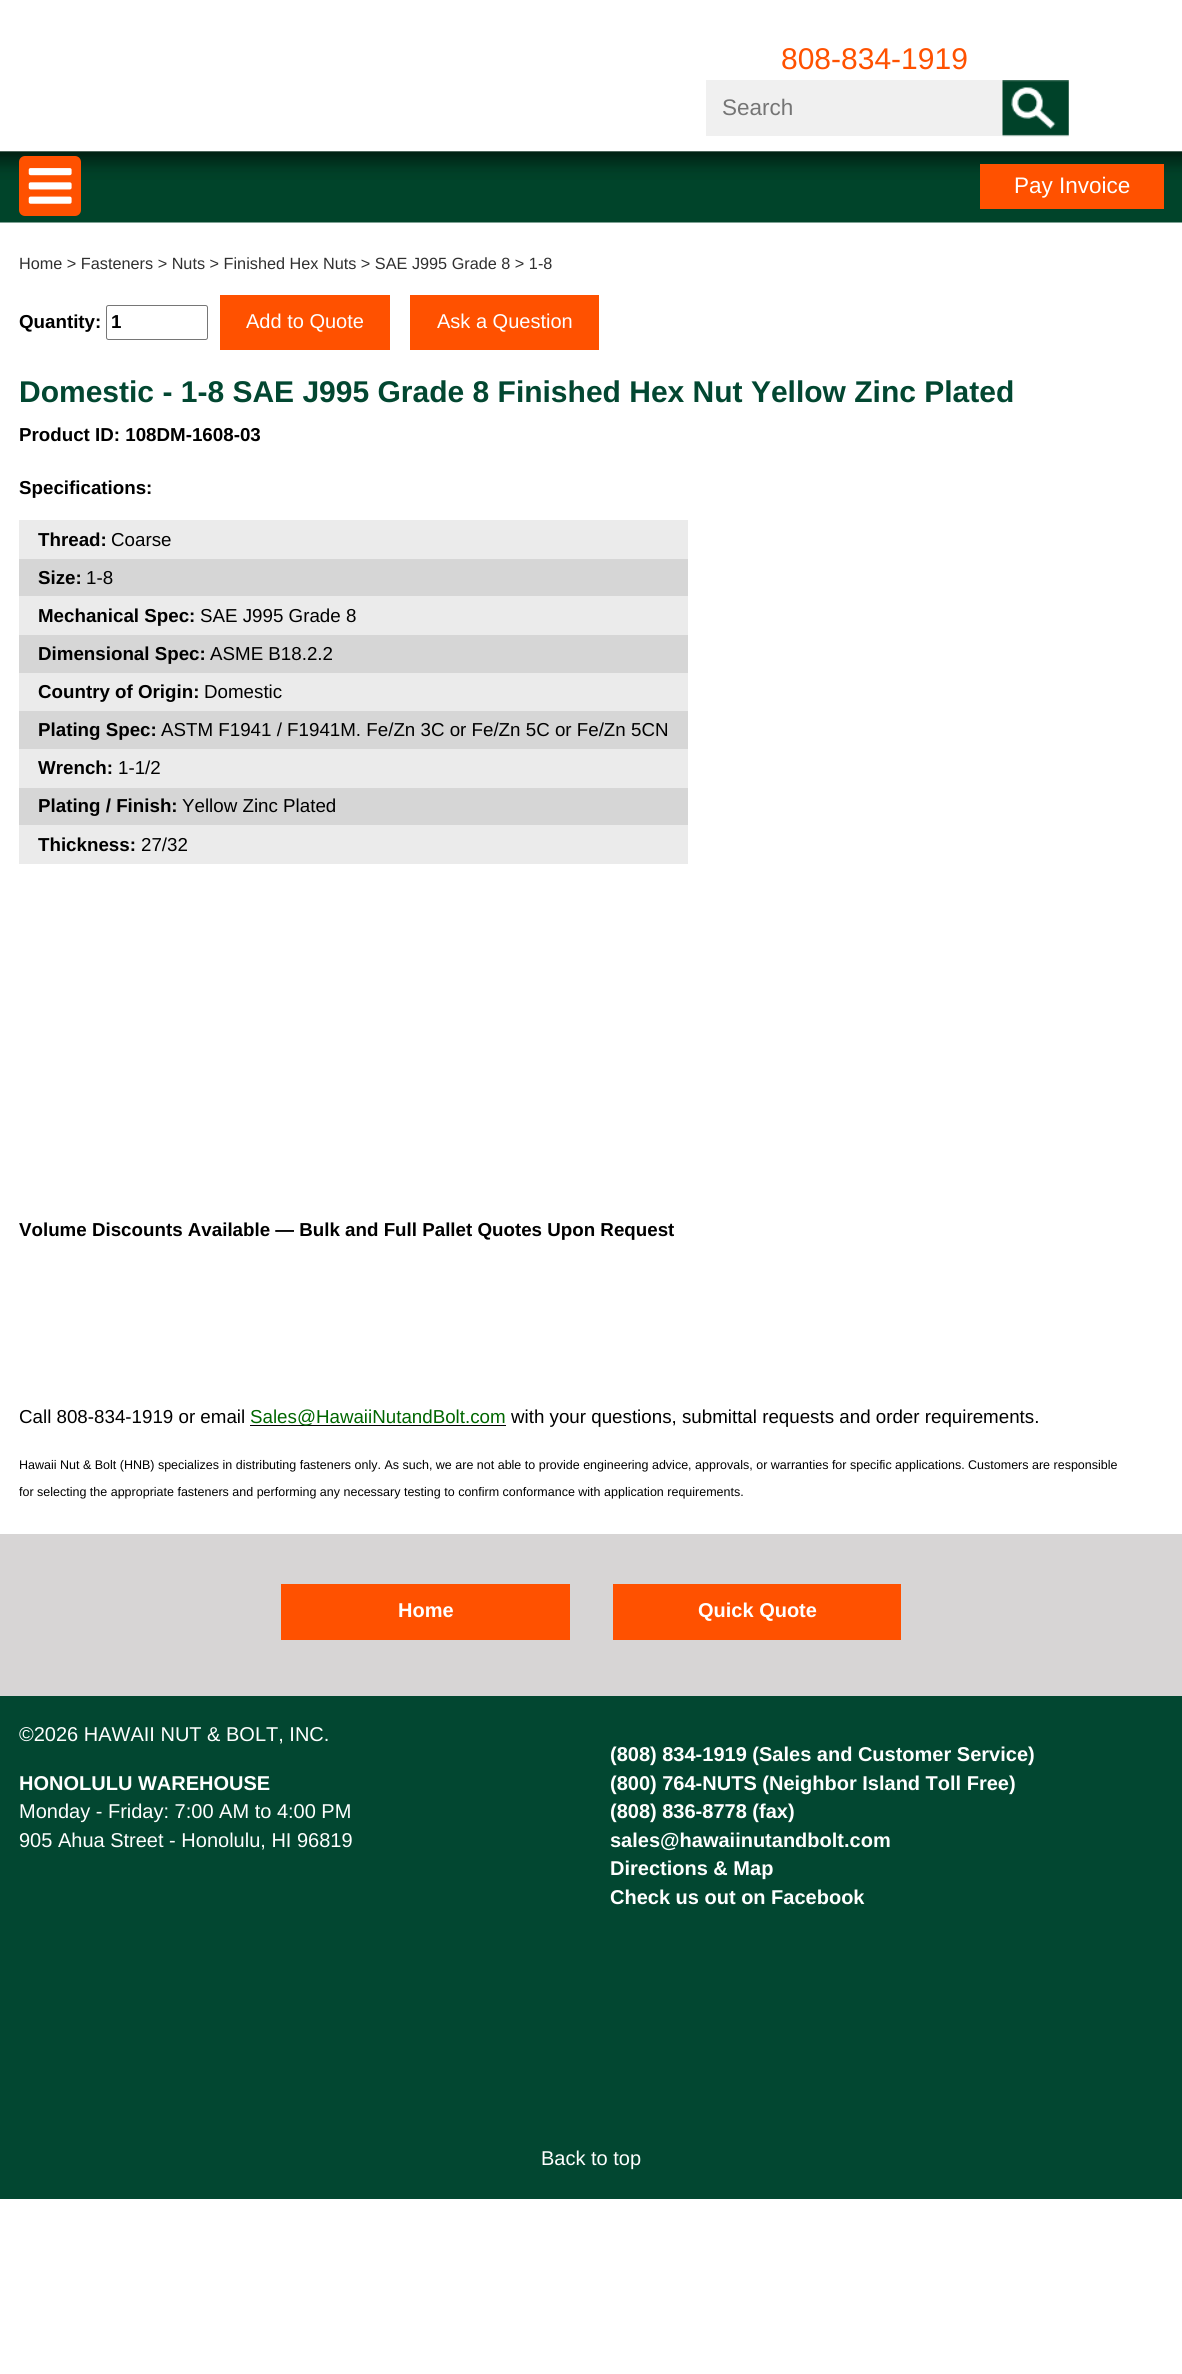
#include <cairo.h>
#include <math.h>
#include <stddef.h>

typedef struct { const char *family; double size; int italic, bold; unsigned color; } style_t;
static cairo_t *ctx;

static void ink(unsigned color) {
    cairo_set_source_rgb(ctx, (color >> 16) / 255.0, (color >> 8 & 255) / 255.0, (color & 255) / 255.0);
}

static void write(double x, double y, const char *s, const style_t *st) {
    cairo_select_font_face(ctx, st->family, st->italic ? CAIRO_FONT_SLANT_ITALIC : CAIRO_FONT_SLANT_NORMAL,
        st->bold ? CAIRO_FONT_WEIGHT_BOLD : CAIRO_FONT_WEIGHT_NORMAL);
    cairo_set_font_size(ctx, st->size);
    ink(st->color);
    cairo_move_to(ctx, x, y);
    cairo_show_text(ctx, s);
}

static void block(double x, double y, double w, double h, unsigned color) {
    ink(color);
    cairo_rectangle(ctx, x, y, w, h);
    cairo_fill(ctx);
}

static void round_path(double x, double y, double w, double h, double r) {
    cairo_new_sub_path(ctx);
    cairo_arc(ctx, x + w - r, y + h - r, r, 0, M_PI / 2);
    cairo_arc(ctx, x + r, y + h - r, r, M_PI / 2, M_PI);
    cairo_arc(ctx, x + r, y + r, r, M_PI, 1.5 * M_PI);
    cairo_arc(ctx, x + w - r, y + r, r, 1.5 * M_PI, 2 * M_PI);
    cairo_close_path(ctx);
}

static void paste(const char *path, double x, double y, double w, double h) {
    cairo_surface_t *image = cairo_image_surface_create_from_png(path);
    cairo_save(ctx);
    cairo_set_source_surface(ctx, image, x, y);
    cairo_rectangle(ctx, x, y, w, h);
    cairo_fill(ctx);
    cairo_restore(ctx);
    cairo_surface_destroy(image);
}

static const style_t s1 = {"Liberation Sans", 30, 0, 0, 0xff5100};
static const style_t s2 = {"Liberation Sans", 22.5, 0, 0, 0x757575};
static const style_t s3 = {"Liberation Sans", 22.5, 0, 0, 0xffffff};
static const style_t s4 = {"Liberation Sans", 16.25, 0, 0, 0x303030};
static const style_t s5 = {"Liberation Sans", 18.75, 0, 1, 0x000000};
static const style_t s6 = {"Liberation Sans", 20, 0, 0, 0xffffff};
static const style_t s7 = {"Liberation Sans", 30, 0, 1, 0x024731};
static const style_t s8 = {"Liberation Sans", 18.75, 0, 0, 0x000000};
static const style_t s9 = {"Liberation Sans", 18.75, 0, 0, 0x006600};
static const style_t s10 = {"Liberation Sans", 12.5, 0, 0, 0x000000};
static const style_t s11 = {"Liberation Sans", 20, 0, 1, 0xffffff};

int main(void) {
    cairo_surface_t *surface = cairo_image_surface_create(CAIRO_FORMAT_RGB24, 1182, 2374);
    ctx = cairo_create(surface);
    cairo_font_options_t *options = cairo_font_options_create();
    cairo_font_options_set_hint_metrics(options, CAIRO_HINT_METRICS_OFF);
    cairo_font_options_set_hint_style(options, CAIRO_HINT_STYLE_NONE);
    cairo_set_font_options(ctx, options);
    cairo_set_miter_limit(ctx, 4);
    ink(0xffffff);
    cairo_paint(ctx);
    write(781, 69, "808-834-1919", &s1);
    block(706, 80, 363, 56, 0xf0f0f0);
    write(722, 115, "Search", &s2);
    paste("pic1.png", 1002, 80, 67, 57);
    paste("pic2.png", 0, 151, 1182, 72);
    ink(0xff5100);
    round_path(19, 156, 62, 60, 6);
    cairo_fill(ctx);
    paste("pic3.png", 28, 168, 44, 36);
    block(980, 164, 184, 45, 0xff5100);
    write(1014, 193, "Pay Invoice", &s3);
    write(19, 269, "Home > Fasteners > Nuts > Finished Hex Nuts > SAE J995 Grade 8 > 1-8", &s4);
    write(19, 328, "Quantity:", &s5);
    round_path(106.5, 305.5, 101, 34, 2);
    ink(0x767676);
    cairo_set_line_width(ctx, 1);
    cairo_stroke(ctx);
    write(111, 328, "1", &s5);
    block(220, 295, 170, 55, 0xff5100);
    write(246, 328, "Add to Quote", &s6);
    block(410, 295, 189, 55, 0xff5100);
    write(437, 328, "Ask a Question", &s6);
    write(19, 402, "Domestic - 1-8 SAE J995 Grade 8 Finished Hex Nut Yellow Zinc Plated", &s7);
    write(19, 441, "Product ID: 108DM-1608-03", &s5);
    write(19, 494, "Specifications:", &s5);
    block(19, 520, 669, 39, 0xebebeb);
    write(38, 546, "Thread:", &s5);
    write(111, 546, "Coarse", &s8);
    block(19, 559, 669, 37, 0xd6d6d6);
    write(38, 584, "Size:", &s5);
    write(86, 584, "1-8", &s8);
    block(19, 596, 669, 39, 0xebebeb);
    write(38, 622, "Mechanical Spec:", &s5);
    write(200, 622, "SAE J995 Grade 8", &s8);
    block(19, 635, 669, 38, 0xd6d6d6);
    write(38, 660, "Dimensional Spec:", &s5);
    write(210, 660, "ASME B18.2.2", &s8);
    block(19, 673, 669, 38, 0xebebeb);
    write(38, 698, "Country of Origin:", &s5);
    write(204, 698, "Domestic", &s8);
    block(19, 711, 669, 38, 0xd6d6d6);
    write(38, 736, "Plating Spec:", &s5);
    write(161, 736, "ASTM F1941 / F1941M. Fe/Zn 3C or Fe/Zn 5C or Fe/Zn 5CN", &s8);
    block(19, 749, 669, 39, 0xebebeb);
    write(38, 774, "Wrench:", &s5);
    write(118, 774, "1-1/2", &s8);
    block(19, 788, 669, 37, 0xd6d6d6);
    write(38, 812, "Plating / Finish:", &s5);
    write(182, 812, "Yellow Zinc Plated", &s8);
    block(19, 825, 669, 39, 0xebebeb);
    write(38, 851, "Thickness:", &s5);
    write(141, 851, "27/32", &s8);
    write(19, 1236, "Volume Discounts Available — Bulk and Full Pallet Quotes Upon Request", &s5);
    write(19, 1423, "Call 808-834-1919 or email", &s8);
    block(250, 1425, 256, 1, 0x000000);
    write(250, 1423, "Sales@HawaiiNutandBolt.com", &s9);
    write(511, 1423, "with your questions, submittal requests and order requirements.", &s8);
    write(19, 1469, "Hawaii Nut & Bolt (HNB) specializes in distributing fasteners only. As such, we are not able to provide engineering advice, approvals, or warranties for specific applications. Customers are responsible", &s10);
    write(19, 1496, "for selecting the appropriate fasteners and performing any necessary testing to confirm conformance with application requirements.", &s10);
    block(0, 1534, 1182, 162, 0xd7d5d5);
    block(281, 1584, 289, 56, 0xff5100);
    write(398, 1617, "Home", &s11);
    block(613, 1584, 288, 56, 0xff5100);
    write(698, 1617, "Quick Quote", &s11);
    block(0, 1696, 1182, 503, 0x024731);
    write(19, 1741, "©2026 HAWAII NUT & BOLT, INC.", &s6);
    write(19, 1790, "HONOLULU WAREHOUSE", &s11);
    write(19, 1818, "Monday - Friday: 7:00 AM to 4:00 PM", &s6);
    write(19, 1847, "905 Ahua Street - Honolulu, HI 96819", &s6);
    write(610, 1761, "(808) 834-1919 (Sales and Customer Service)", &s11);
    write(610, 1790, "(800) 764-NUTS (Neighbor Island Toll Free)", &s11);
    write(610, 1818, "(808) 836-8778 (fax)", &s11);
    write(610, 1847, "sales@hawaiinutandbolt.com", &s11);
    write(610, 1875, "Directions & Map", &s11);
    write(610, 1904, "Check us out on Facebook", &s11);
    write(541, 2165, "Back to top", &s6);
    cairo_surface_write_to_png(surface, "screenshot.png");
    cairo_font_options_destroy(options);
    cairo_destroy(ctx);
    cairo_surface_destroy(surface);
    return 0;
}
